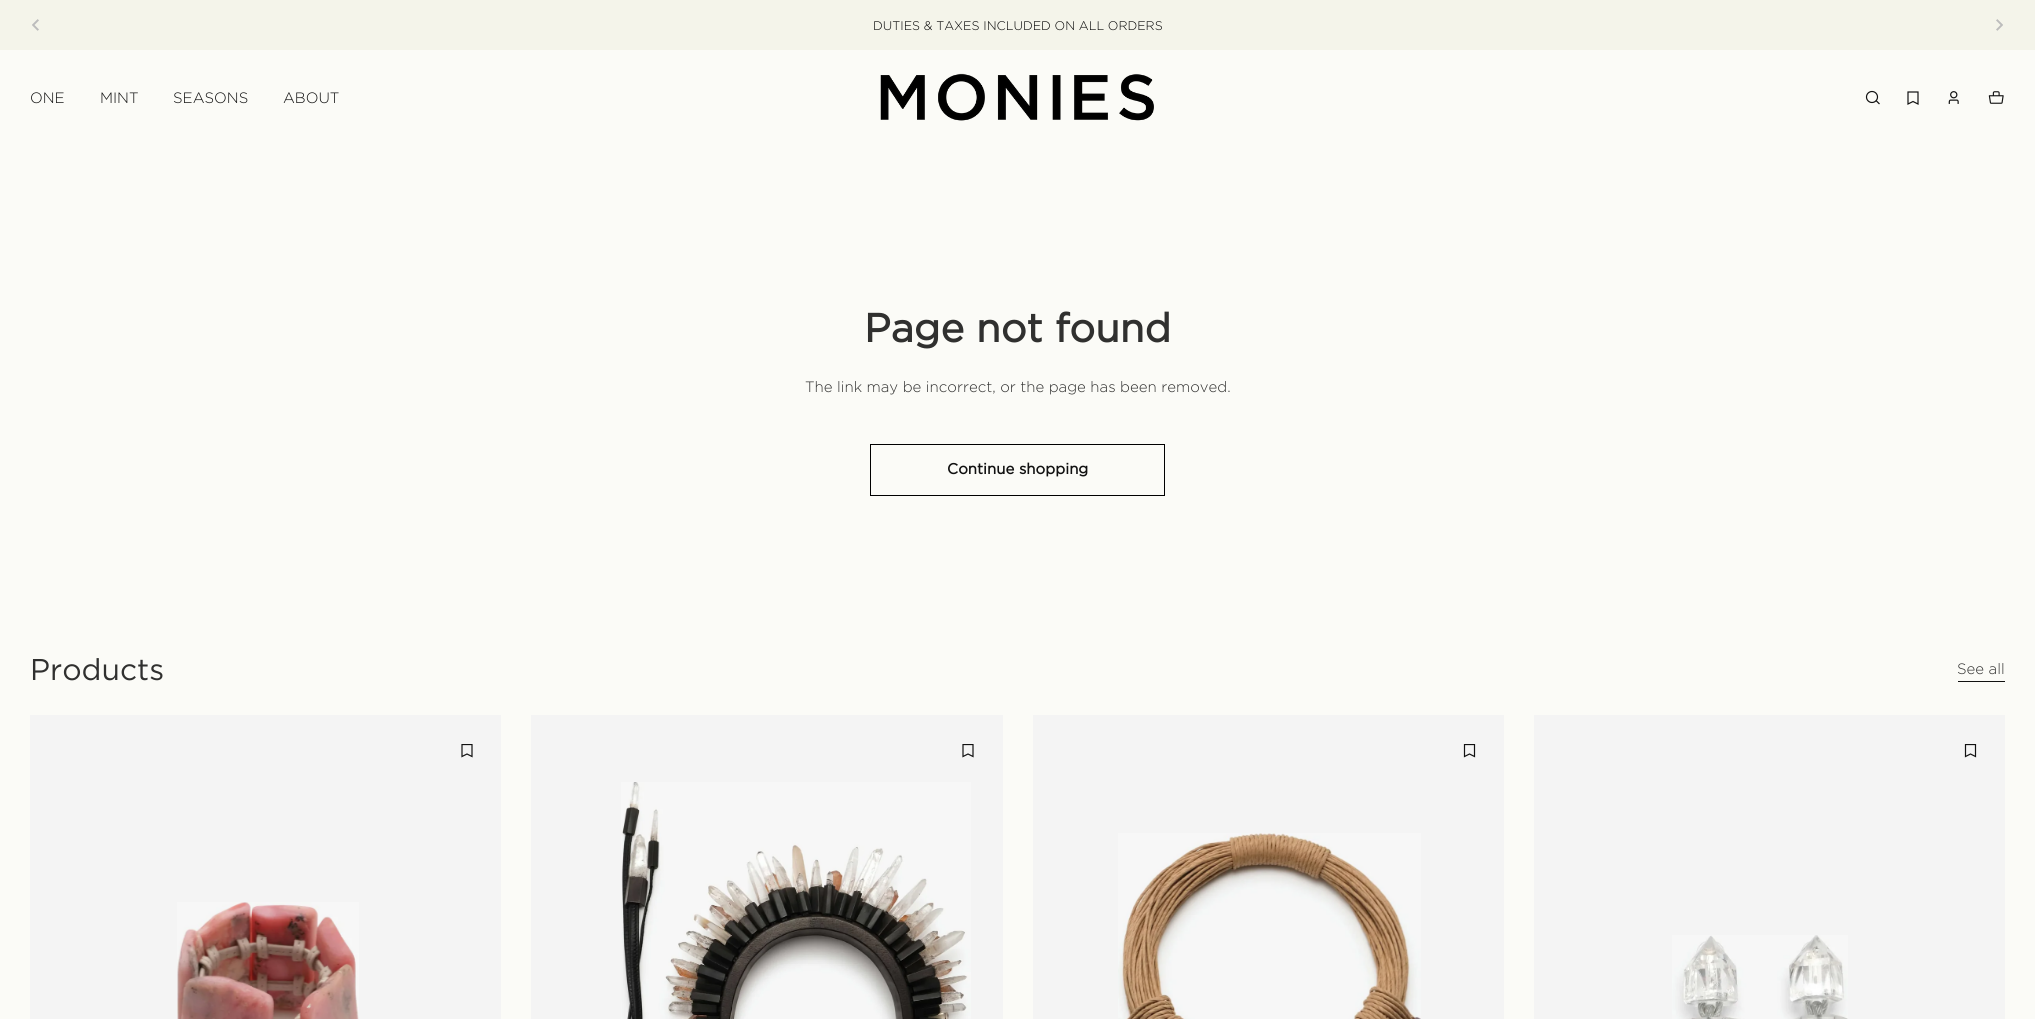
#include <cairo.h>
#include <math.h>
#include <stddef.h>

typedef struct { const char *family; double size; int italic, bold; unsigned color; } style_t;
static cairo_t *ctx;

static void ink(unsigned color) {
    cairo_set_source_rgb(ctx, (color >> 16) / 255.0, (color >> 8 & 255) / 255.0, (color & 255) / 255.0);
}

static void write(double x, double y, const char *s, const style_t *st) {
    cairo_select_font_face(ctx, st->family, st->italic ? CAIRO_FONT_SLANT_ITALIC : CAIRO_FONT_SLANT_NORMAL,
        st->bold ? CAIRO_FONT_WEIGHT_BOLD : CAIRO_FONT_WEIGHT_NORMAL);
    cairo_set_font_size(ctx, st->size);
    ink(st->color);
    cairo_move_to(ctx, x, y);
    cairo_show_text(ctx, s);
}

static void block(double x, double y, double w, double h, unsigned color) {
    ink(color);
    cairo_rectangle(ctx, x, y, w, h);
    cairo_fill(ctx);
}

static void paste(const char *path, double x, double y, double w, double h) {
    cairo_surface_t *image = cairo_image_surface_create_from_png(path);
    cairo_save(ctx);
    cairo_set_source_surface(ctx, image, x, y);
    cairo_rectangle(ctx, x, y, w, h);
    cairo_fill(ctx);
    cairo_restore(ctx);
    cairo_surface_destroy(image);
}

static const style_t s1 = {"Gotham Light", 12.5, 0, 0, 0x000000};
static const style_t s2 = {"Gotham Light", 15, 0, 0, 0x111111};
static const style_t s3 = {"Gotham", 40, 0, 1, 0x30302f};
static const style_t s4 = {"Gotham Light", 15, 0, 0, 0x30302f};
static const style_t s5 = {"Gotham", 15, 0, 1, 0x111111};
static const style_t s6 = {"Gotham", 30, 0, 0, 0x30302f};

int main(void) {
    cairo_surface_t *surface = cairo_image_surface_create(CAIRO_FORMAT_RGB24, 2035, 1019);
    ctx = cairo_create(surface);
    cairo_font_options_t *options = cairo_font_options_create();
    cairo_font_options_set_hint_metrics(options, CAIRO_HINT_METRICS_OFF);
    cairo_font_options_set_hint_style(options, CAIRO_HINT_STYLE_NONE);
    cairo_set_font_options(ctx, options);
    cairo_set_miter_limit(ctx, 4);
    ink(0xfbfbf7);
    cairo_paint(ctx);
    block(0, 0, 2035, 50, 0xf4f4ea);
    paste("pic1.png", 32, 19, 7, 12);
    paste("pic2.png", 1996, 19, 7, 12);
    write(873, 30, "DUTIES & TAXES INCLUDED ON ALL ORDERS", &s1);
    write(30, 103, "ONE", &s2);
    write(100, 103, "MINT", &s2);
    write(173, 103, "SEASONS", &s2);
    write(283, 103, "ABOUT", &s2);
    paste("pic3.png", 880, 73, 274, 48);
    cairo_arc(ctx, 1872, 97, 5.5, 0, 2 * M_PI);
    cairo_set_line_width(ctx, 1.2);
    cairo_stroke(ctx);
    cairo_new_path(ctx);
    cairo_move_to(ctx, 1876, 100.5);
    cairo_line_to(ctx, 1879.5, 104);
    cairo_move_to(ctx, 1918, 92);
    cairo_line_to(ctx, 1918, 104);
    cairo_line_to(ctx, 1913, 101.5);
    cairo_line_to(ctx, 1908, 104);
    cairo_line_to(ctx, 1908, 92);
    cairo_close_path(ctx);
    cairo_stroke(ctx);
    paste("pic4.png", 1948, 91, 11, 13);
    paste("pic5.png", 1988, 91, 16, 13);
    write(864, 342, "Page not found", &s3);
    write(805, 392, "The link may be incorrect, or the page has been removed.", &s4);
    cairo_rectangle(ctx, 870.5, 444.5, 294, 51);
    ink(0x000000);
    cairo_set_line_width(ctx, 1);
    cairo_stroke(ctx);
    write(947, 474, "Continue shopping", &s5);
    write(30, 680, "Products", &s6);
    write(1957, 674, "See all", &s4);
    block(1958, 681, 47, 1, 0x111111);
    block(30, 715, 471, 304, 0xf4f4f4);
    cairo_save(ctx);
    cairo_rectangle(ctx, 460, 744, 14, 14);
    cairo_clip(ctx);
    cairo_new_path(ctx);
    cairo_move_to(ctx, 472, 744.5);
    cairo_line_to(ctx, 472, 756.5);
    cairo_line_to(ctx, 467, 754);
    cairo_line_to(ctx, 462, 756.5);
    cairo_line_to(ctx, 462, 744.5);
    cairo_close_path(ctx);
    ink(0x111111);
    cairo_set_line_width(ctx, 1.2);
    cairo_stroke(ctx);
    cairo_restore(ctx);
    paste("pic6.png", 177, 902, 182, 117);
    block(531, 715, 472, 304, 0xf4f4f4);
    cairo_save(ctx);
    cairo_rectangle(ctx, 961, 744, 14, 14);
    cairo_clip(ctx);
    cairo_new_path(ctx);
    cairo_move_to(ctx, 973, 744.5);
    cairo_line_to(ctx, 973, 756.5);
    cairo_line_to(ctx, 968, 754);
    cairo_line_to(ctx, 963, 756.5);
    cairo_line_to(ctx, 963, 744.5);
    cairo_close_path(ctx);
    ink(0x111111);
    cairo_set_line_width(ctx, 1.2);
    cairo_stroke(ctx);
    cairo_restore(ctx);
    paste("pic7.png", 621, 782, 350, 237);
    block(1033, 715, 471, 304, 0xf4f4f4);
    cairo_save(ctx);
    cairo_rectangle(ctx, 1463, 744, 13, 14);
    cairo_clip(ctx);
    cairo_new_path(ctx);
    cairo_move_to(ctx, 1474.5, 744.5);
    cairo_line_to(ctx, 1474.5, 756.5);
    cairo_line_to(ctx, 1469.5, 754);
    cairo_line_to(ctx, 1464.5, 756.5);
    cairo_line_to(ctx, 1464.5, 744.5);
    cairo_close_path(ctx);
    ink(0x111111);
    cairo_set_line_width(ctx, 1.2);
    cairo_stroke(ctx);
    cairo_restore(ctx);
    paste("pic8.png", 1118, 833, 303, 186);
    block(1534, 715, 471, 304, 0xf4f4f4);
    cairo_save(ctx);
    cairo_rectangle(ctx, 1964, 744, 14, 14);
    cairo_clip(ctx);
    cairo_new_path(ctx);
    cairo_move_to(ctx, 1975.5, 744.5);
    cairo_line_to(ctx, 1975.5, 756.5);
    cairo_line_to(ctx, 1970.5, 754);
    cairo_line_to(ctx, 1965.5, 756.5);
    cairo_line_to(ctx, 1965.5, 744.5);
    cairo_close_path(ctx);
    ink(0x111111);
    cairo_set_line_width(ctx, 1.2);
    cairo_stroke(ctx);
    cairo_restore(ctx);
    paste("pic9.png", 1672, 935, 176, 84);
    cairo_surface_write_to_png(surface, "screenshot.png");
    cairo_font_options_destroy(options);
    cairo_destroy(ctx);
    cairo_surface_destroy(surface);
    return 0;
}
